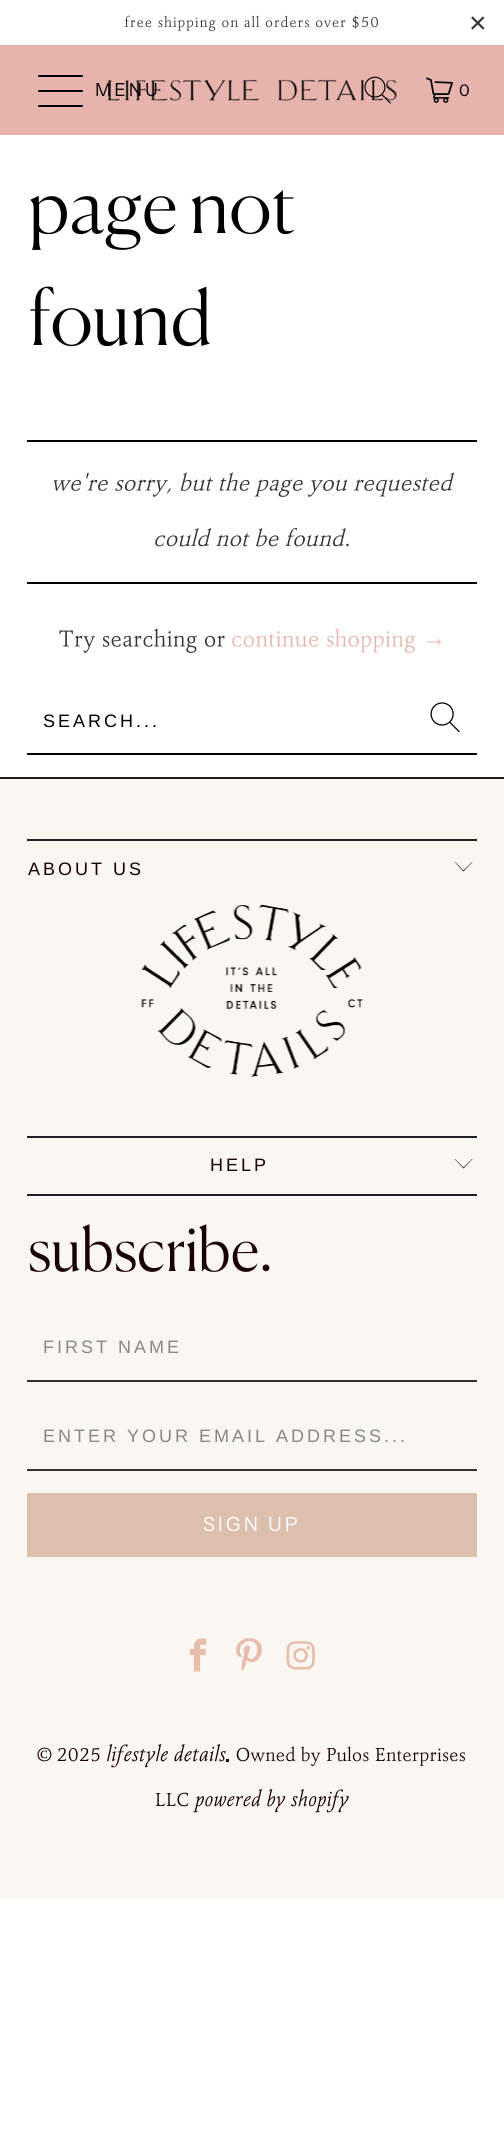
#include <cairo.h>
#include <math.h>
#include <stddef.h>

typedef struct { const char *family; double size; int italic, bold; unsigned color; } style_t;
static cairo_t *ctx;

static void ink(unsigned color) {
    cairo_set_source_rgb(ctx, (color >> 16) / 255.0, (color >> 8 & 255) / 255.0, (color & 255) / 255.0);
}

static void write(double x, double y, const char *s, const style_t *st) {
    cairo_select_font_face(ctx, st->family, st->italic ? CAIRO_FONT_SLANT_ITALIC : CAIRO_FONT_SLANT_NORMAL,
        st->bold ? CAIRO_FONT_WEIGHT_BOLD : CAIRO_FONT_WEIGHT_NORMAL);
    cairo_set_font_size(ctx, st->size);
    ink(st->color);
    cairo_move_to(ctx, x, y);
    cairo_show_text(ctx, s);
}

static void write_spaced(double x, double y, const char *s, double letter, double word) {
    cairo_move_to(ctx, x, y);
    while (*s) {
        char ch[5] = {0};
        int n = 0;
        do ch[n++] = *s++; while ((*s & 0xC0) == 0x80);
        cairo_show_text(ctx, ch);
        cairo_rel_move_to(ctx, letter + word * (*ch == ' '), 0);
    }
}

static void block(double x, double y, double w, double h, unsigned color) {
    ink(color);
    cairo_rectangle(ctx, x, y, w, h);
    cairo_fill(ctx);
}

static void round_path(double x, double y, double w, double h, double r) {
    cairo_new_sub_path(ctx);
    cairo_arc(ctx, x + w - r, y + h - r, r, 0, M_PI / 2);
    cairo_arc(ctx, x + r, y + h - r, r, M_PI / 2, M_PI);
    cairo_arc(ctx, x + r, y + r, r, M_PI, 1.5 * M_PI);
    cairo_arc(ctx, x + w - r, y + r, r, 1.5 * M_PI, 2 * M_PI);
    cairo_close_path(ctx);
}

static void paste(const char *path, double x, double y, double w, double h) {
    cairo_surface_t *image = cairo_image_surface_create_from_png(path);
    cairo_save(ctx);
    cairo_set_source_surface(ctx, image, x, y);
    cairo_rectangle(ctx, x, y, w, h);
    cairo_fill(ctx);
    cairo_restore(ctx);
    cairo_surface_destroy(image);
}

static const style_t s1 = {"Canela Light", 75, 0, 0, 0x000000};
static const style_t s2 = {"Liberation Serif", 24, 0, 0, 0xe7b4ad};
static const style_t s3 = {"Canela Light", 60, 0, 0, 0x190101};

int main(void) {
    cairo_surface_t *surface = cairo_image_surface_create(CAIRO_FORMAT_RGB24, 504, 2138);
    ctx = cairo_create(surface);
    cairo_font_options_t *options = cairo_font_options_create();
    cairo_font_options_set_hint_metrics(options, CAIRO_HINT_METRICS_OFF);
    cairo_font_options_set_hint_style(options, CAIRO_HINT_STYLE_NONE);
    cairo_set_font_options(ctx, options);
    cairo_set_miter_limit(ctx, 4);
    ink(0xffffff);
    cairo_paint(ctx);
    paste("pic1.png", 125, 15, 253, 16);
    cairo_select_font_face(ctx, "Liberation Sans", CAIRO_FONT_SLANT_NORMAL, CAIRO_FONT_WEIGHT_NORMAL);
    cairo_set_font_size(ctx, 30);
    ink(0x333333);
    write_spaced(469, 33, "×", 1, 0);
    block(0, 45, 504, 90, 0xe7b4ad);
    cairo_select_font_face(ctx, "Instrument Sans", CAIRO_FONT_SLANT_NORMAL, CAIRO_FONT_WEIGHT_NORMAL);
    cairo_set_font_size(ctx, 18);
    ink(0x000000);
    write_spaced(95, 96, "MENU", 3, 0);
    paste("pic2.png", 107, 79, 290, 23);
    round_path(38, 75, 45, 2, 1);
    cairo_fill(ctx);
    round_path(38, 90, 45, 2, 1);
    cairo_fill(ctx);
    round_path(38, 105, 45, 2, 1);
    cairo_fill(ctx);
    paste("pic3.png", 364, 76, 27, 28);
    paste("pic4.png", 426, 77, 27, 26);
    cairo_set_font_size(ctx, 16);
    write_spaced(459, 96, "0", 3, 0);
    write(28, 233, "page not", &s1);
    write(28, 345, "found", &s1);
    block(27, 440, 450, 2, 0x000000);
    block(27, 582, 450, 2, 0x000000);
    paste("pic5.png", 53, 472, 402, 25);
    paste("pic6.png", 155, 528, 194, 19);
    paste("pic7.png", 59, 628, 166, 25);
    paste("pic8.png", 232, 628, 184, 25);
    write(422, 646, "→", &s2);
    block(27, 753, 450, 2, 0x000000);
    cairo_select_font_face(ctx, "Liberation Sans", CAIRO_FONT_SLANT_NORMAL, CAIRO_FONT_WEIGHT_NORMAL);
    cairo_set_font_size(ctx, 18);
    write_spaced(43, 727, "SEARCH...", 3, 0);
    paste("pic9.png", 430, 702, 30, 31);
    block(0, 779, 504, 1120, 0xfaf6f1);
    block(0, 777, 504, 2, 0x1b1f23);
    block(27, 839, 450, 2, 0x1b1f23);
    ink(0x190101);
    write_spaced(28, 875, "ABOUT US", 3, 0);
    cairo_new_path(ctx);
    cairo_move_to(ctx, 463.5, 871.5);
    cairo_line_to(ctx, 454.5, 862);
    cairo_line_to(ctx, 455, 862);
    cairo_line_to(ctx, 463.5, 870.5);
    cairo_line_to(ctx, 472, 862);
    cairo_line_to(ctx, 472.5, 862);
    cairo_close_path(ctx);
    cairo_fill(ctx);
    paste("pic10.png", 141, 904, 222, 173);
    block(27, 1136, 450, 2, 0x1b1f23);
    ink(0x190101);
    write_spaced(210, 1171, "HELP", 3, 0);
    cairo_new_path(ctx);
    cairo_move_to(ctx, 463.5, 1168.5);
    cairo_line_to(ctx, 454.5, 1159);
    cairo_line_to(ctx, 455, 1159);
    cairo_line_to(ctx, 463.5, 1167.5);
    cairo_line_to(ctx, 472, 1159);
    cairo_line_to(ctx, 472.5, 1159);
    cairo_close_path(ctx);
    cairo_fill(ctx);
    block(27, 1194, 450, 2, 0x1b1f23);
    write(28, 1271, "subscribe.", &s3);
    block(27, 1380, 450, 2, 0x333333);
    cairo_select_font_face(ctx, "Liberation Sans", CAIRO_FONT_SLANT_NORMAL, CAIRO_FONT_WEIGHT_NORMAL);
    cairo_set_font_size(ctx, 18);
    ink(0x888888);
    write_spaced(43, 1353, "FIRST NAME", 3, 0);
    block(27, 1469, 450, 2, 0x333333);
    ink(0x888888);
    write_spaced(43, 1442, "ENTER YOUR EMAIL ADDRESS...", 3, 0);
    block(27, 1493, 450, 64, 0xddbfae);
    cairo_select_font_face(ctx, "Instrument Sans", CAIRO_FONT_SLANT_NORMAL, CAIRO_FONT_WEIGHT_NORMAL);
    cairo_set_font_size(ctx, 19.5);
    ink(0xffffff);
    write_spaced(203, 1531, "SIGN UP", 3, 0);
    paste("pic11.png", 189, 1638, 18, 34);
    paste("pic12.png", 236, 1638, 26, 33);
    paste("pic13.png", 286, 1641, 29, 29);
    paste("pic14.png", 37, 1747, 63, 15);
    paste("pic15.png", 107, 1744, 119, 24);
    block(226, 1759, 3, 3, 0x1b0303);
    paste("pic16.png", 236, 1746, 229, 21);
    paste("pic17.png", 155, 1792, 34, 15);
    paste("pic18.png", 193, 1789, 156, 24);
    cairo_surface_write_to_png(surface, "screenshot.png");
    cairo_font_options_destroy(options);
    cairo_destroy(ctx);
    cairo_surface_destroy(surface);
    return 0;
}
